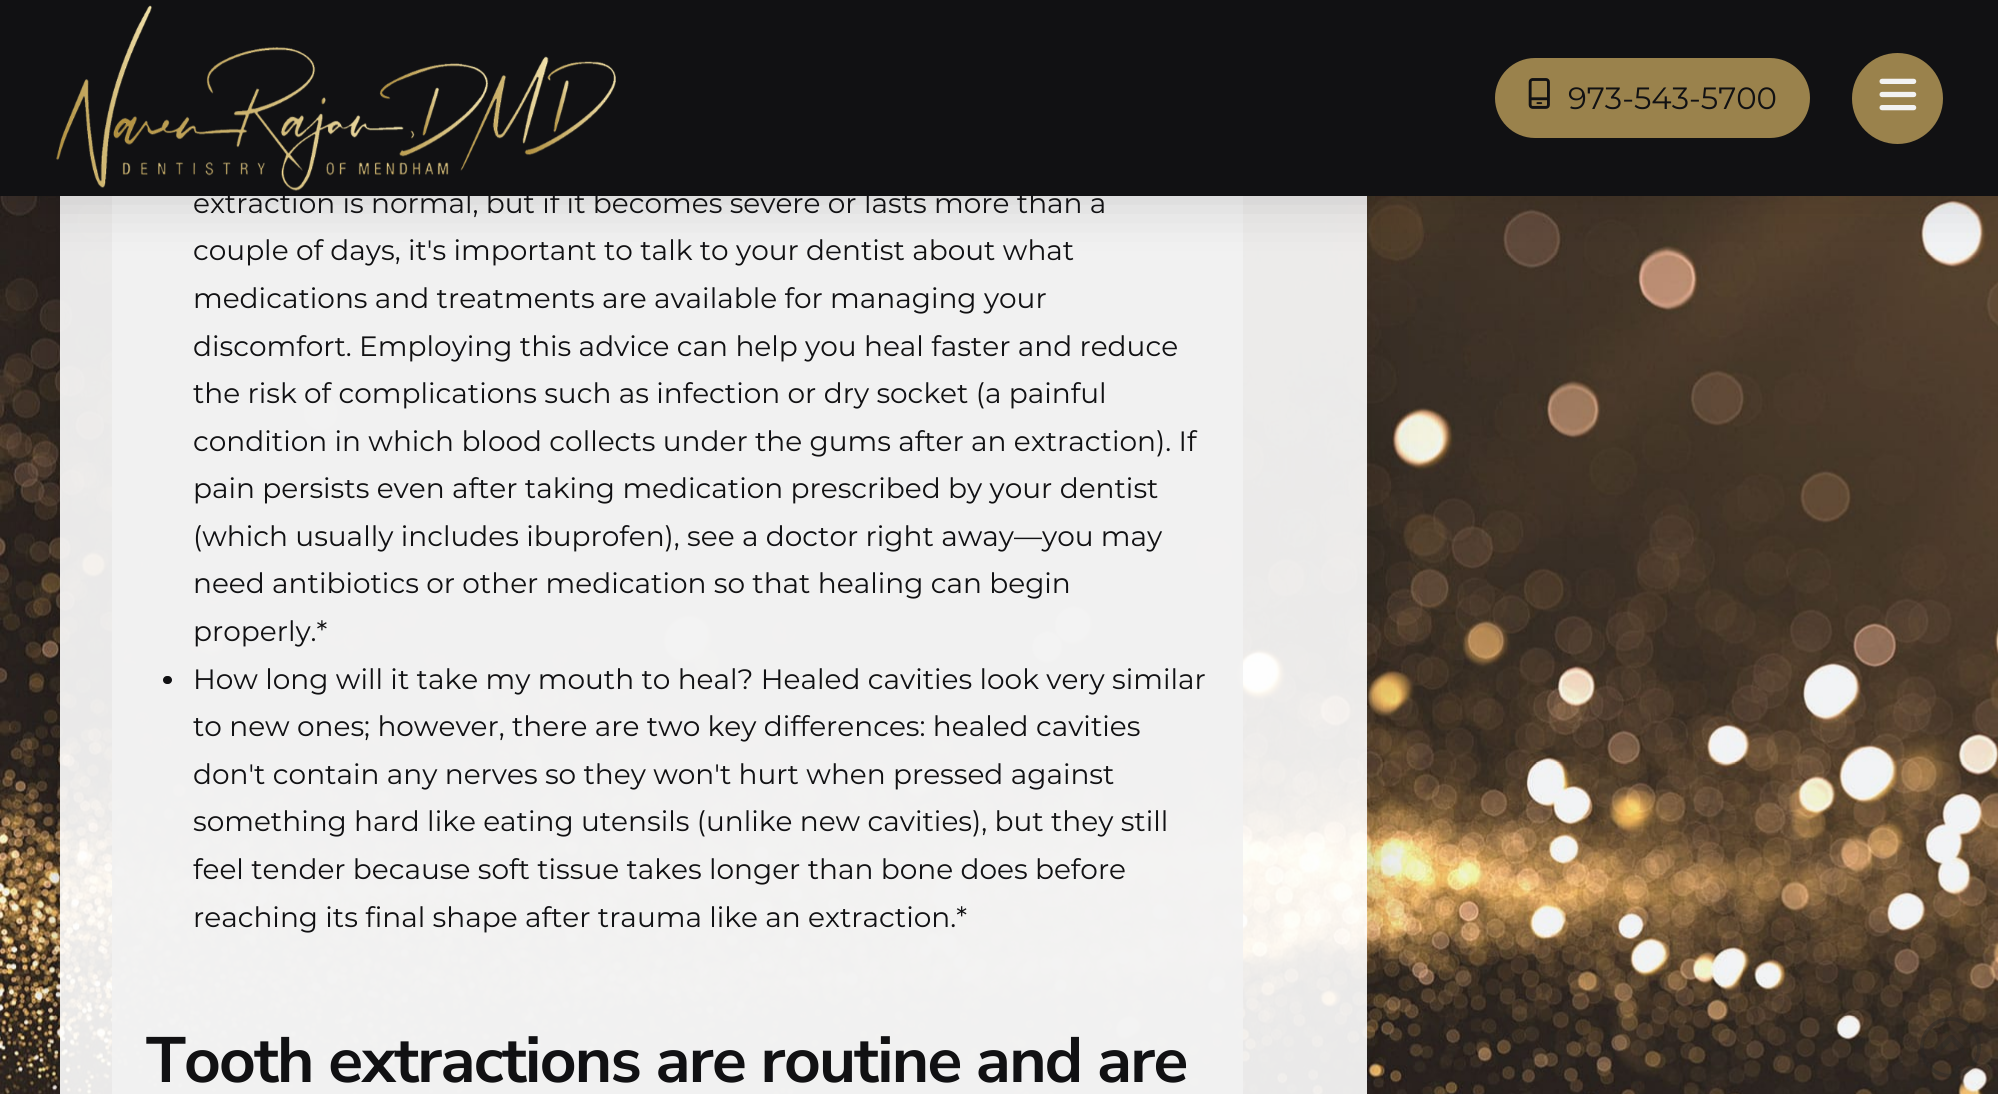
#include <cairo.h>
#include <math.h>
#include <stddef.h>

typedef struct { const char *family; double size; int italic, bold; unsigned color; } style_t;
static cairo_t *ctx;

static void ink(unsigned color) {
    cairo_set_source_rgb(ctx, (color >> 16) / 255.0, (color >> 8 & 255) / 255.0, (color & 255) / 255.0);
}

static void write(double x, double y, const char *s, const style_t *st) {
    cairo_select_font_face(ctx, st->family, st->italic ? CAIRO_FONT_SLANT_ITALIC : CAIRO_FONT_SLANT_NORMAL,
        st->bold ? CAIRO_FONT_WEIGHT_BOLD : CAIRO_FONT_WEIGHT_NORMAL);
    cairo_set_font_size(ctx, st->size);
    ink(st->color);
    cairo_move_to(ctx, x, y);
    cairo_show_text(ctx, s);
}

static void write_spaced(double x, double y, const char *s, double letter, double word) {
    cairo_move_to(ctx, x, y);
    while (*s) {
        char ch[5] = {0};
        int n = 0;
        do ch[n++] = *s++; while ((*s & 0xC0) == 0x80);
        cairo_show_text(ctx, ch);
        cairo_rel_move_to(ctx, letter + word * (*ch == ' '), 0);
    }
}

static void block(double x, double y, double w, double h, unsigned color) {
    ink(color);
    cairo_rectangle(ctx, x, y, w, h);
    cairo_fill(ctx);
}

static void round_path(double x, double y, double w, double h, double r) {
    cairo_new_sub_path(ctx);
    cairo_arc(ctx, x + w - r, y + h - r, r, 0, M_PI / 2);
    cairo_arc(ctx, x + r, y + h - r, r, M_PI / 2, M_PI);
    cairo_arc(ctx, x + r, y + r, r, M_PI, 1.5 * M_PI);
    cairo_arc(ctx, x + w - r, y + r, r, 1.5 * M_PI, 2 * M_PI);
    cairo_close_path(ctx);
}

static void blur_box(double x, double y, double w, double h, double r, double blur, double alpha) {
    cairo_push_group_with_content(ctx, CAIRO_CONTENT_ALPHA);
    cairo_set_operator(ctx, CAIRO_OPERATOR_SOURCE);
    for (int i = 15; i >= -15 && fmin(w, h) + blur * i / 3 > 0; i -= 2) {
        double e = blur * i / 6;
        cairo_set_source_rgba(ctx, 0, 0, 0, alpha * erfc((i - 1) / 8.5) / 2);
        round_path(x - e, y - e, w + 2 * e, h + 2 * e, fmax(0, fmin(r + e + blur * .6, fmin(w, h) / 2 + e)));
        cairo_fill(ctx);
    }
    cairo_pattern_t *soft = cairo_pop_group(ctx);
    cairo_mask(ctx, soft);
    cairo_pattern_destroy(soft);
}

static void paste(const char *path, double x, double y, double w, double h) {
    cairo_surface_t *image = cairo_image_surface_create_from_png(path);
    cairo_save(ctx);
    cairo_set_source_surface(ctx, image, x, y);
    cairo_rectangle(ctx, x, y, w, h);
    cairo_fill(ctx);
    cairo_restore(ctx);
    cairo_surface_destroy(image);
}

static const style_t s1 = {"Montserrat", 30.75, 0, 0, 0x111113};
static const style_t s2 = {"Montserrat", 28, 0, 0, 0x111113};

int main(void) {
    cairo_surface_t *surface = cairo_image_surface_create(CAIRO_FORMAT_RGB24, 1998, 1094);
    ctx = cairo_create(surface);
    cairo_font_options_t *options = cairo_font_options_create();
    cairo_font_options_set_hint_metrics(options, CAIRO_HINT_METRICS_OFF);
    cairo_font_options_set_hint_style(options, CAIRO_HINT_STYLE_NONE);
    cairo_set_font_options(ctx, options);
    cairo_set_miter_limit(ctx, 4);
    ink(0xffffff);
    cairo_paint(ctx);
    paste("pic5.png", 0, 196, 1998, 898);
    cairo_save(ctx);
    cairo_set_fill_rule(ctx, CAIRO_FILL_RULE_EVEN_ODD);
    cairo_new_path(ctx);
    cairo_move_to(ctx, 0, 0);
    cairo_line_to(ctx, 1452, 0);
    cairo_line_to(ctx, 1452, 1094);
    cairo_line_to(ctx, 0, 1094);
    cairo_close_path(ctx);
    cairo_move_to(ctx, 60, -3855);
    cairo_line_to(ctx, 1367, -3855);
    cairo_line_to(ctx, 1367, 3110);
    cairo_curve_to(ctx, 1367, 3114, 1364, 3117, 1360, 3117);
    cairo_line_to(ctx, 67, 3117);
    cairo_curve_to(ctx, 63, 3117, 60, 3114, 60, 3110);
    cairo_close_path(ctx);
    cairo_clip(ctx);
    ink(0x000000);
    blur_box(60, -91, 1307, 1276, 7, 28, 0.15);
    cairo_restore(ctx);
    cairo_set_source_rgba(ctx, 1, 1, 1, 0.9);
    cairo_rectangle(ctx, 60, 196, 1307, 898);
    cairo_fill(ctx);
    cairo_set_source_rgba(ctx, 0.949, 0.949, 0.949, 0.9);
    cairo_rectangle(ctx, 112, 196, 1131, 898);
    cairo_fill(ctx);
    ink(0x000000);
    blur_box(0, 4, 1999, 196, 0, 28, 0.15);
    block(0, 0, 1998, 196, 0x111113);
    paste("pic1.png", 56, 5, 560, 186);
    ink(0x9a824c);
    round_path(1495, 58, 315, 80, 40);
    cairo_fill(ctx);
    paste("pic2.png", 1528, 78, 22, 31);
    write(1568, 109, "973-543-5700", &s1);
    ink(0x9a824c);
    cairo_new_path(ctx);
    cairo_arc(ctx, 1897.5, 98.5, 45.5, 0, 2 * M_PI);
    cairo_fill(ctx);
    paste("pic3.png", 1879, 78, 38, 33);
    write(193, 213, "extraction is normal, but if it becomes severe or lasts more than a", &s2);
    write(193, 260, "couple of days, it's important to talk to your dentist about what", &s2);
    write(193, 308, "medications and treatments are available for managing your", &s2);
    write(193, 356, "discomfort. Employing this advice can help you heal faster and reduce", &s2);
    write(193, 403, "the risk of complications such as infection or dry socket (a painful", &s2);
    write(193, 451, "condition in which blood collects under the gums after an extraction). If", &s2);
    write(193, 498, "pain persists even after taking medication prescribed by your dentist", &s2);
    write(193, 546, "(which usually includes ibuprofen), see a doctor right away—you may", &s2);
    write(193, 593, "need antibiotics or other medication so that healing can begin", &s2);
    write(193, 641, "properly.*", &s2);
    round_path(163, 676, 9, 8, 4);
    cairo_fill(ctx);
    write(193, 689, "How long will it take my mouth to heal? Healed cavities look very similar", &s2);
    write(193, 736, "to new ones; however, there are two key differences: healed cavities", &s2);
    write(193, 784, "don't contain any nerves so they won't hurt when pressed against", &s2);
    write(193, 831, "something hard like eating utensils (unlike new cavities), but they still", &s2);
    write(193, 879, "feel tender because soft tissue takes longer than bone does before", &s2);
    write(193, 927, "reaching its final shape after trauma like an extraction.*", &s2);
    cairo_select_font_face(ctx, "Nunito Sans", CAIRO_FONT_SLANT_NORMAL, CAIRO_FONT_WEIGHT_BOLD);
    cairo_set_font_size(ctx, 64);
    write_spaced(146, 1082, "Tooth extractions are routine and are", -1.75, 0);
    cairo_new_path(ctx);
    cairo_arc(ctx, 1950.5, 1047.5, 28.5, 0, 2 * M_PI);
    cairo_set_source_rgba(ctx, 0.153, 0.153, 0.153, 0.38);
    cairo_set_line_width(ctx, 4);
    cairo_stroke(ctx);
    paste("pic4.png", 1935, 1035, 29, 19);
    cairo_surface_write_to_png(surface, "screenshot.png");
    cairo_font_options_destroy(options);
    cairo_destroy(ctx);
    cairo_surface_destroy(surface);
    return 0;
}
